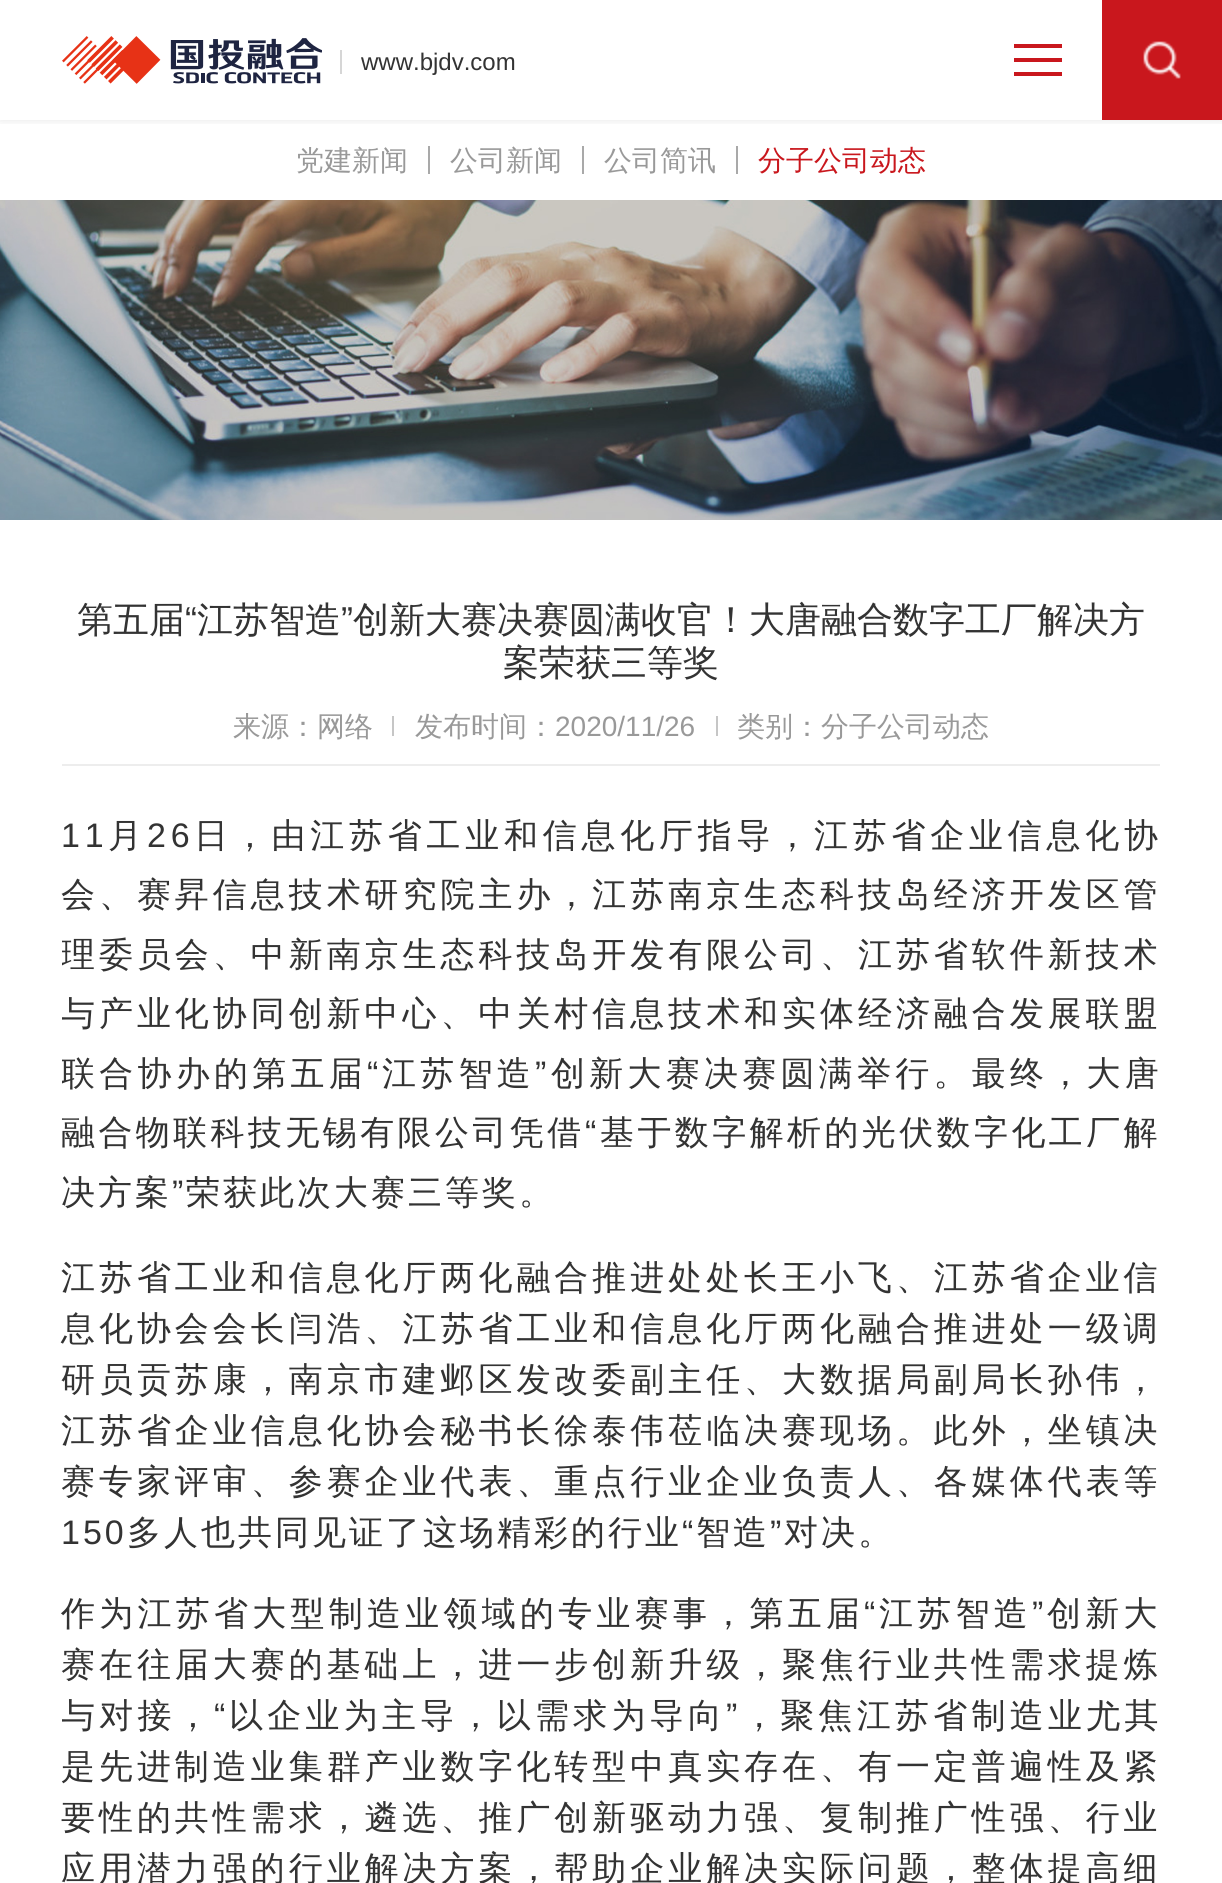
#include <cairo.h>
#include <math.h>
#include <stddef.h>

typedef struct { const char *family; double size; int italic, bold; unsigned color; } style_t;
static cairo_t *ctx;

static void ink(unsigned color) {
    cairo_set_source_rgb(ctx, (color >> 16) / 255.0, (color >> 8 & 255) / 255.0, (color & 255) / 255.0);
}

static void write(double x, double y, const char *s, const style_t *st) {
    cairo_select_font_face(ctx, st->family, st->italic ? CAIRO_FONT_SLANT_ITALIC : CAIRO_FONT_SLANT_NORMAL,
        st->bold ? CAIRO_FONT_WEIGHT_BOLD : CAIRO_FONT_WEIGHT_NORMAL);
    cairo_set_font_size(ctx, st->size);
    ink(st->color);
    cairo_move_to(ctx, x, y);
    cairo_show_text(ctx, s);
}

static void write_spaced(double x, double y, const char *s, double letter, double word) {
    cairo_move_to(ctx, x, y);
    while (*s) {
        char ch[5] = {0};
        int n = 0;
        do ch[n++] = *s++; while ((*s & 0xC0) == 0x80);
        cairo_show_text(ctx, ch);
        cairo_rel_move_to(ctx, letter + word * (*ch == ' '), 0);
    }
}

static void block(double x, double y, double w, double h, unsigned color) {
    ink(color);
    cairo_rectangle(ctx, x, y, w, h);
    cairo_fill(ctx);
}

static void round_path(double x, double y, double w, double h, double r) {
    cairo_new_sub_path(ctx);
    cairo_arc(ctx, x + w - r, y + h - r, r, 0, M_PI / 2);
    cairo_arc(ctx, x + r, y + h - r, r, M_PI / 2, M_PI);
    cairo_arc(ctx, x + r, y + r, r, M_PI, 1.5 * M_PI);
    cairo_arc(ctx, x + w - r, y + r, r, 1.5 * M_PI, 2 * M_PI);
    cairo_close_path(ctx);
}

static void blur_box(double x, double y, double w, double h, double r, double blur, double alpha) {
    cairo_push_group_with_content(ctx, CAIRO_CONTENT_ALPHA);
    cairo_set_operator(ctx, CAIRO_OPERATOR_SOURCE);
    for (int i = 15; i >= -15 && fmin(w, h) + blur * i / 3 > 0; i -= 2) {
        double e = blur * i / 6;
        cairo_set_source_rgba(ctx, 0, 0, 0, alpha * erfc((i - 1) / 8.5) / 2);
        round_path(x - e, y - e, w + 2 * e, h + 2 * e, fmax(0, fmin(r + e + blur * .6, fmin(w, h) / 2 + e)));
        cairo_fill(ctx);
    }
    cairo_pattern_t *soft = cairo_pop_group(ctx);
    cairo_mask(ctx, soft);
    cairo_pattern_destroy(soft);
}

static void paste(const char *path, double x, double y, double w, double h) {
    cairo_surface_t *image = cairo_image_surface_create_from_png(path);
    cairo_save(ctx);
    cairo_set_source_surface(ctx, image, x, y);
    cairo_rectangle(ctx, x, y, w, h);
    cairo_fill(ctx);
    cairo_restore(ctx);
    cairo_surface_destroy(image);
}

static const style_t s1 = {"Liberation Sans", 24, 0, 0, 0x333333};
static const style_t s2 = {"WenQuanYi Zen Hei Medium", 28, 0, 0, 0x999999};
static const style_t s3 = {"WenQuanYi Zen Hei Medium", 28, 0, 0, 0xc9171d};
static const style_t s4 = {"WenQuanYi Zen Hei Medium", 36, 0, 0, 0x333333};
static const style_t s5 = {"Liberation Sans", 36, 0, 0, 0x333333};
static const style_t s6 = {"Liberation Sans", 28, 0, 0, 0x999999};

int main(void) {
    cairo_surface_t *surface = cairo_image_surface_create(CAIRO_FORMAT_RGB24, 1222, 1883);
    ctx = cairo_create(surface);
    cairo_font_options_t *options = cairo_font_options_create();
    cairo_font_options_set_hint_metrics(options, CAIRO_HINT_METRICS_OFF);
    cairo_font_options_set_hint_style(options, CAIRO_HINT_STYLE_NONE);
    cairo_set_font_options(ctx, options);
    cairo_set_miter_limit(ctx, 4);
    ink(0xffffff);
    cairo_paint(ctx);
    cairo_save(ctx);
    cairo_rectangle(ctx, 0, 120, 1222, 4);
    cairo_clip(ctx);
    ink(0x000000);
    blur_box(0, 0, 1222, 120, 0, 5, 0.1);
    cairo_restore(ctx);
    paste("pic1.png", 62, 36, 260, 48);
    block(340, 50, 2, 24, 0xd6d6d6);
    write(361, 70, "www.bjdv.com", &s1);
    block(1014, 44, 48, 4, 0xc9171d);
    block(1014, 58, 48, 4, 0xc9171d);
    block(1014, 72, 48, 4, 0xc9171d);
    block(1102, 0, 120, 120, 0xc9171d);
    paste("pic2.png", 1143, 41, 38, 38);
    write(296, 170, "党建新闻", &s2);
    block(428, 146, 2, 28, 0xa9a9a9);
    write(450, 170, "公司新闻", &s2);
    block(582, 146, 2, 28, 0xa9a9a9);
    write(604, 170, "公司简讯", &s2);
    block(736, 146, 2, 28, 0xa9a9a9);
    write(758, 170, "分子公司动态", &s3);
    paste("pic3.png", 0, 200, 1222, 320);
    write(77, 632, "第五届", &s4);
    write(185, 632, "“", &s5);
    write(197, 632, "江苏智造", &s4);
    write(341, 632, "”", &s5);
    write(353, 632, "创新大赛决赛圆满收官！大唐融合数字工厂解决方", &s4);
    write(503, 675, "案荣获三等奖", &s4);
    write(233, 736, "来源：网络", &s2);
    block(392, 716, 2, 20, 0xc6c6c6);
    write(415, 736, "发布时间：", &s2);
    write(555, 736, "2020/11/26", &s6);
    block(716, 716, 2, 20, 0xc6c6c6);
    write(737, 736, "类别：分子公司动态", &s2);
    block(62, 764, 1098, 2, 0xededed);
    cairo_select_font_face(ctx, "Liberation Sans", CAIRO_FONT_SLANT_NORMAL, CAIRO_FONT_WEIGHT_NORMAL);
    cairo_set_font_size(ctx, 34);
    ink(0x333333);
    write_spaced(61, 847, "11", 4.75, 0);
    cairo_select_font_face(ctx, "WenQuanYi Zen Hei Medium", CAIRO_FONT_SLANT_NORMAL, CAIRO_FONT_WEIGHT_NORMAL);
    write_spaced(108, 847, "月", 4.75, 0);
    cairo_select_font_face(ctx, "Liberation Sans", CAIRO_FONT_SLANT_NORMAL, CAIRO_FONT_WEIGHT_NORMAL);
    write_spaced(147, 847, "26", 4.75, 0);
    cairo_select_font_face(ctx, "WenQuanYi Zen Hei Medium", CAIRO_FONT_SLANT_NORMAL, CAIRO_FONT_WEIGHT_NORMAL);
    write_spaced(194, 847, "日，由江苏省工业和信息化厅指导，江苏省企业信息化协", 4.75, 0);
    write_spaced(61, 906, "会、赛昇信息技术研究院主办，江苏南京生态科技岛经济开发区管", 3.95, 0);
    cairo_save(ctx);
    cairo_rectangle(ctx, 62, 766, 1098, 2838);
    cairo_clip(ctx);
    write_spaced(61, 966, "理委员会、中新南京生态科技岛开发有限公司、江苏省软件新技术", 3.95, 0);
    write_spaced(61, 1025, "与产业化协同创新中心、中关村信息技术和实体经济融合发展联盟", 3.95, 0);
    write_spaced(61, 1085, "联合协办的第五届", 4.25, 0);
    cairo_restore(ctx);
    cairo_select_font_face(ctx, "Liberation Sans", CAIRO_FONT_SLANT_NORMAL, CAIRO_FONT_WEIGHT_NORMAL);
    write_spaced(367, 1085, "“", 4.25, 0);
    cairo_select_font_face(ctx, "WenQuanYi Zen Hei Medium", CAIRO_FONT_SLANT_NORMAL, CAIRO_FONT_WEIGHT_NORMAL);
    write_spaced(382, 1085, "江苏智造", 4.25, 0);
    cairo_select_font_face(ctx, "Liberation Sans", CAIRO_FONT_SLANT_NORMAL, CAIRO_FONT_WEIGHT_NORMAL);
    write_spaced(535, 1085, "”", 4.25, 0);
    cairo_select_font_face(ctx, "WenQuanYi Zen Hei Medium", CAIRO_FONT_SLANT_NORMAL, CAIRO_FONT_WEIGHT_NORMAL);
    write_spaced(551, 1085, "创新大赛决赛圆满举行。最终，大唐", 4.25, 0);
    write_spaced(61, 1144, "融合物联科技无锡有限公司凭借", 3.4, 0);
    cairo_select_font_face(ctx, "Liberation Sans", CAIRO_FONT_SLANT_NORMAL, CAIRO_FONT_WEIGHT_NORMAL);
    write_spaced(585, 1144, "“", 3.4, 0);
    cairo_select_font_face(ctx, "WenQuanYi Zen Hei Medium", CAIRO_FONT_SLANT_NORMAL, CAIRO_FONT_WEIGHT_NORMAL);
    write_spaced(600, 1144, "基于数字解析的光伏数字化工厂解", 3.4, 0);
    write_spaced(61, 1204, "决方案", 3, 0);
    cairo_select_font_face(ctx, "Liberation Sans", CAIRO_FONT_SLANT_NORMAL, CAIRO_FONT_WEIGHT_NORMAL);
    write_spaced(172, 1204, "”", 3, 0);
    cairo_select_font_face(ctx, "WenQuanYi Zen Hei Medium", CAIRO_FONT_SLANT_NORMAL, CAIRO_FONT_WEIGHT_NORMAL);
    write_spaced(186, 1204, "荣获此次大赛三等奖。", 3, 0);
    write_spaced(61, 1289, "江苏省工业和信息化厅两化融合推进处处长王小飞、江苏省企业信", 3.95, 0);
    write_spaced(61, 1340, "息化协会会长闫浩、江苏省工业和信息化厅两化融合推进处一级调", 3.95, 0);
    write_spaced(61, 1391, "研员贡苏康，南京市建邺区发改委副主任、大数据局副局长孙伟，", 3.95, 0);
    write_spaced(61, 1442, "江苏省企业信息化协会秘书长徐泰伟莅临决赛现场。此外，坐镇决", 3.95, 0);
    write_spaced(61, 1493, "赛专家评审、参赛企业代表、重点行业企业负责人、各媒体代表等", 3.95, 0);
    cairo_select_font_face(ctx, "Liberation Sans", CAIRO_FONT_SLANT_NORMAL, CAIRO_FONT_WEIGHT_NORMAL);
    write_spaced(61, 1544, "150", 3, 0);
    cairo_select_font_face(ctx, "WenQuanYi Zen Hei Medium", CAIRO_FONT_SLANT_NORMAL, CAIRO_FONT_WEIGHT_NORMAL);
    write_spaced(127, 1544, "多人也共同见证了这场精彩的行业", 3, 0);
    cairo_select_font_face(ctx, "Liberation Sans", CAIRO_FONT_SLANT_NORMAL, CAIRO_FONT_WEIGHT_NORMAL);
    write_spaced(682, 1544, "“", 3, 0);
    cairo_select_font_face(ctx, "WenQuanYi Zen Hei Medium", CAIRO_FONT_SLANT_NORMAL, CAIRO_FONT_WEIGHT_NORMAL);
    write_spaced(696, 1544, "智造", 3, 0);
    cairo_select_font_face(ctx, "Liberation Sans", CAIRO_FONT_SLANT_NORMAL, CAIRO_FONT_WEIGHT_NORMAL);
    write_spaced(770, 1544, "”", 3, 0);
    cairo_select_font_face(ctx, "WenQuanYi Zen Hei Medium", CAIRO_FONT_SLANT_NORMAL, CAIRO_FONT_WEIGHT_NORMAL);
    write_spaced(784, 1544, "对决。", 3, 0);
    write_spaced(61, 1625, "作为江苏省大型制造业领域的专业赛事，第五届", 4.25, 0);
    cairo_select_font_face(ctx, "Liberation Sans", CAIRO_FONT_SLANT_NORMAL, CAIRO_FONT_WEIGHT_NORMAL);
    write_spaced(864, 1625, "“", 4.25, 0);
    cairo_select_font_face(ctx, "WenQuanYi Zen Hei Medium", CAIRO_FONT_SLANT_NORMAL, CAIRO_FONT_WEIGHT_NORMAL);
    write_spaced(879, 1625, "江苏智造", 4.25, 0);
    cairo_select_font_face(ctx, "Liberation Sans", CAIRO_FONT_SLANT_NORMAL, CAIRO_FONT_WEIGHT_NORMAL);
    write_spaced(1032, 1625, "”", 4.25, 0);
    cairo_select_font_face(ctx, "WenQuanYi Zen Hei Medium", CAIRO_FONT_SLANT_NORMAL, CAIRO_FONT_WEIGHT_NORMAL);
    write_spaced(1047, 1625, "创新大", 4.25, 0);
    write_spaced(61, 1676, "赛在往届大赛的基础上，进一步创新升级，聚焦行业共性需求提炼", 3.95, 0);
    cairo_save(ctx);
    cairo_rectangle(ctx, 62, 766, 1098, 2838);
    cairo_clip(ctx);
    write_spaced(61, 1727, "与对接，", 4.25, 0);
    cairo_restore(ctx);
    cairo_select_font_face(ctx, "Liberation Sans", CAIRO_FONT_SLANT_NORMAL, CAIRO_FONT_WEIGHT_NORMAL);
    write_spaced(214, 1727, "“", 4.25, 0);
    cairo_select_font_face(ctx, "WenQuanYi Zen Hei Medium", CAIRO_FONT_SLANT_NORMAL, CAIRO_FONT_WEIGHT_NORMAL);
    write_spaced(229, 1727, "以企业为主导，以需求为导向", 4.25, 0);
    cairo_select_font_face(ctx, "Liberation Sans", CAIRO_FONT_SLANT_NORMAL, CAIRO_FONT_WEIGHT_NORMAL);
    write_spaced(726, 1727, "”", 4.25, 0);
    cairo_select_font_face(ctx, "WenQuanYi Zen Hei Medium", CAIRO_FONT_SLANT_NORMAL, CAIRO_FONT_WEIGHT_NORMAL);
    write_spaced(742, 1727, "，聚焦江苏省制造业尤其", 4.25, 0);
    write_spaced(61, 1778, "是先进制造业集群产业数字化转型中真实存在、有一定普遍性及紧", 3.95, 0);
    write_spaced(61, 1829, "要性的共性需求，遴选、推广创新驱动力强、复制推广性强、行业", 3.95, 0);
    write_spaced(61, 1880, "应用潜力强的行业解决方案，帮助企业解决实际问题，整体提高细", 3.95, 0);
    cairo_surface_write_to_png(surface, "screenshot.png");
    cairo_font_options_destroy(options);
    cairo_destroy(ctx);
    cairo_surface_destroy(surface);
    return 0;
}
